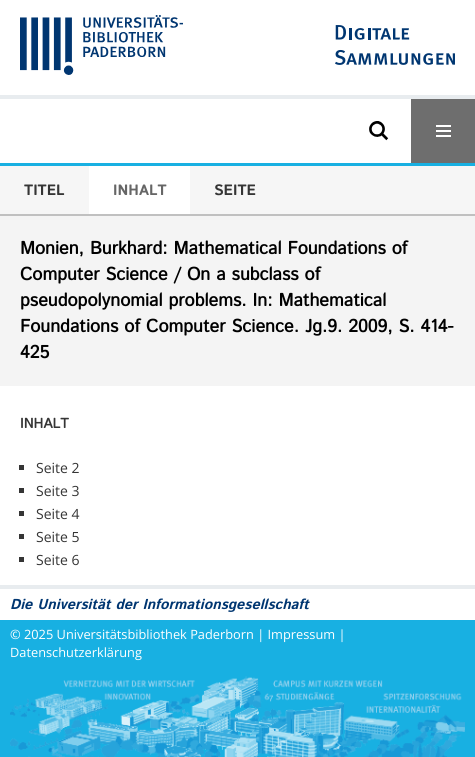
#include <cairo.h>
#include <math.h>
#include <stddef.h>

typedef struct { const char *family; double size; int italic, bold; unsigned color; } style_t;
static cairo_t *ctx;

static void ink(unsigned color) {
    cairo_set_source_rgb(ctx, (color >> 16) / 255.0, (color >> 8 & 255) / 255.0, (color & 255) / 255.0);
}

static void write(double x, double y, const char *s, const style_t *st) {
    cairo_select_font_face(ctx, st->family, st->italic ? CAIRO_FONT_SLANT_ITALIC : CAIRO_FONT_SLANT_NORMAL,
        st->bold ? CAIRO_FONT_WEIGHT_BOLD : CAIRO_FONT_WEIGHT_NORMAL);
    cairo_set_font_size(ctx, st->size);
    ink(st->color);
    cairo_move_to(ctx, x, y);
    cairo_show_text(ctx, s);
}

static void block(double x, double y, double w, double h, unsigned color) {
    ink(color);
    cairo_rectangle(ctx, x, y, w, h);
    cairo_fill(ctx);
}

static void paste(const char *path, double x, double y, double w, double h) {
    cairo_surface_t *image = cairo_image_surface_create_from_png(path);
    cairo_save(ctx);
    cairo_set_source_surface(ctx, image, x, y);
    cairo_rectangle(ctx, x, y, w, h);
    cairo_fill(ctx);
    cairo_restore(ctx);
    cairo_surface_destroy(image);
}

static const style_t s1 = {"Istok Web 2", 15, 0, 1, 0x353535};
static const style_t s2 = {"Istok Web 2", 15, 0, 1, 0x666666};
static const style_t s3 = {"Istok Web", 18, 0, 1, 0x000000};
static const style_t s4 = {"Istok Web", 14, 0, 1, 0x353535};
static const style_t s5 = {"Open Sans", 14, 0, 0, 0x353535};
static const style_t s6 = {"Istok Web", 14.4, 1, 1, 0x003671};
static const style_t s7 = {"Open Sans", 12.8, 0, 0, 0xffffff};

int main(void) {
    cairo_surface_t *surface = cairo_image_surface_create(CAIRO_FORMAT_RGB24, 475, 757);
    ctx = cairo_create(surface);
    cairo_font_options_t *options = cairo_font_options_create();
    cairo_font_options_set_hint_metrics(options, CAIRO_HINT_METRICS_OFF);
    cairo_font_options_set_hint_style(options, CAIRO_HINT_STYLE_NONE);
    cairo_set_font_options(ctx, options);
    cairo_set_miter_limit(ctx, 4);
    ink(0xffffff);
    cairo_paint(ctx);
    block(0, 95, 475, 4, 0xe8ecef);
    paste("pic1.png", 20, 15, 163, 60);
    paste("pic2.png", 335, 25, 120, 40);
    paste("pic3.png", 369, 121, 20, 20);
    block(411, 99, 64, 64, 0x6e6e6e);
    paste("pic4.png", 436, 125, 15, 12);
    block(0, 163, 475, 3, 0x18b0e2);
    block(0, 166, 475, 48, 0xf6f6f6);
    block(0, 214, 475, 2, 0xc0c0c0);
    write(24, 195, "TITEL", &s1);
    block(89, 166, 101, 48, 0xffffff);
    write(113, 195, "INHALT", &s2);
    write(214, 195, "SEITE", &s1);
    block(0, 216, 475, 170, 0xf4f4f4);
    write(20, 254, "Monien, Burkhard: Mathematical Foundations of", &s3);
    write(20, 280, "Computer Science / On a subclass of", &s3);
    write(20, 306, "pseudopolynomial problems. In: Mathematical", &s3);
    write(20, 332, "Foundations of Computer Science. Jg.9. 2009, S. 414-", &s3);
    write(20, 358, "425", &s3);
    write(20, 428, "INHALT", &s4);
    block(19, 465, 5, 5, 0x353535);
    write(36, 473, "Seite 2", &s5);
    block(19, 488, 5, 5, 0x353535);
    write(36, 496, "Seite 3", &s5);
    block(19, 511, 5, 5, 0x353535);
    write(36, 519, "Seite 4", &s5);
    block(19, 534, 5, 5, 0x353535);
    write(36, 542, "Seite 5", &s5);
    block(19, 557, 5, 5, 0x353535);
    write(36, 565, "Seite 6", &s5);
    block(0, 585, 475, 4, 0xe8ecef);
    write(10, 609, "Die Universität der Informationsgesellschaft", &s6);
    block(0, 620, 475, 137, 0x18b0e2);
    write(10, 639, "© 2025 Universitätsbibliothek Paderborn | Impressum |", &s7);
    write(10, 657, "Datenschutzerklärung", &s7);
    paste("pic5.png", 10, 676, 455, 81);
    cairo_surface_write_to_png(surface, "screenshot.png");
    cairo_font_options_destroy(options);
    cairo_destroy(ctx);
    cairo_surface_destroy(surface);
    return 0;
}
